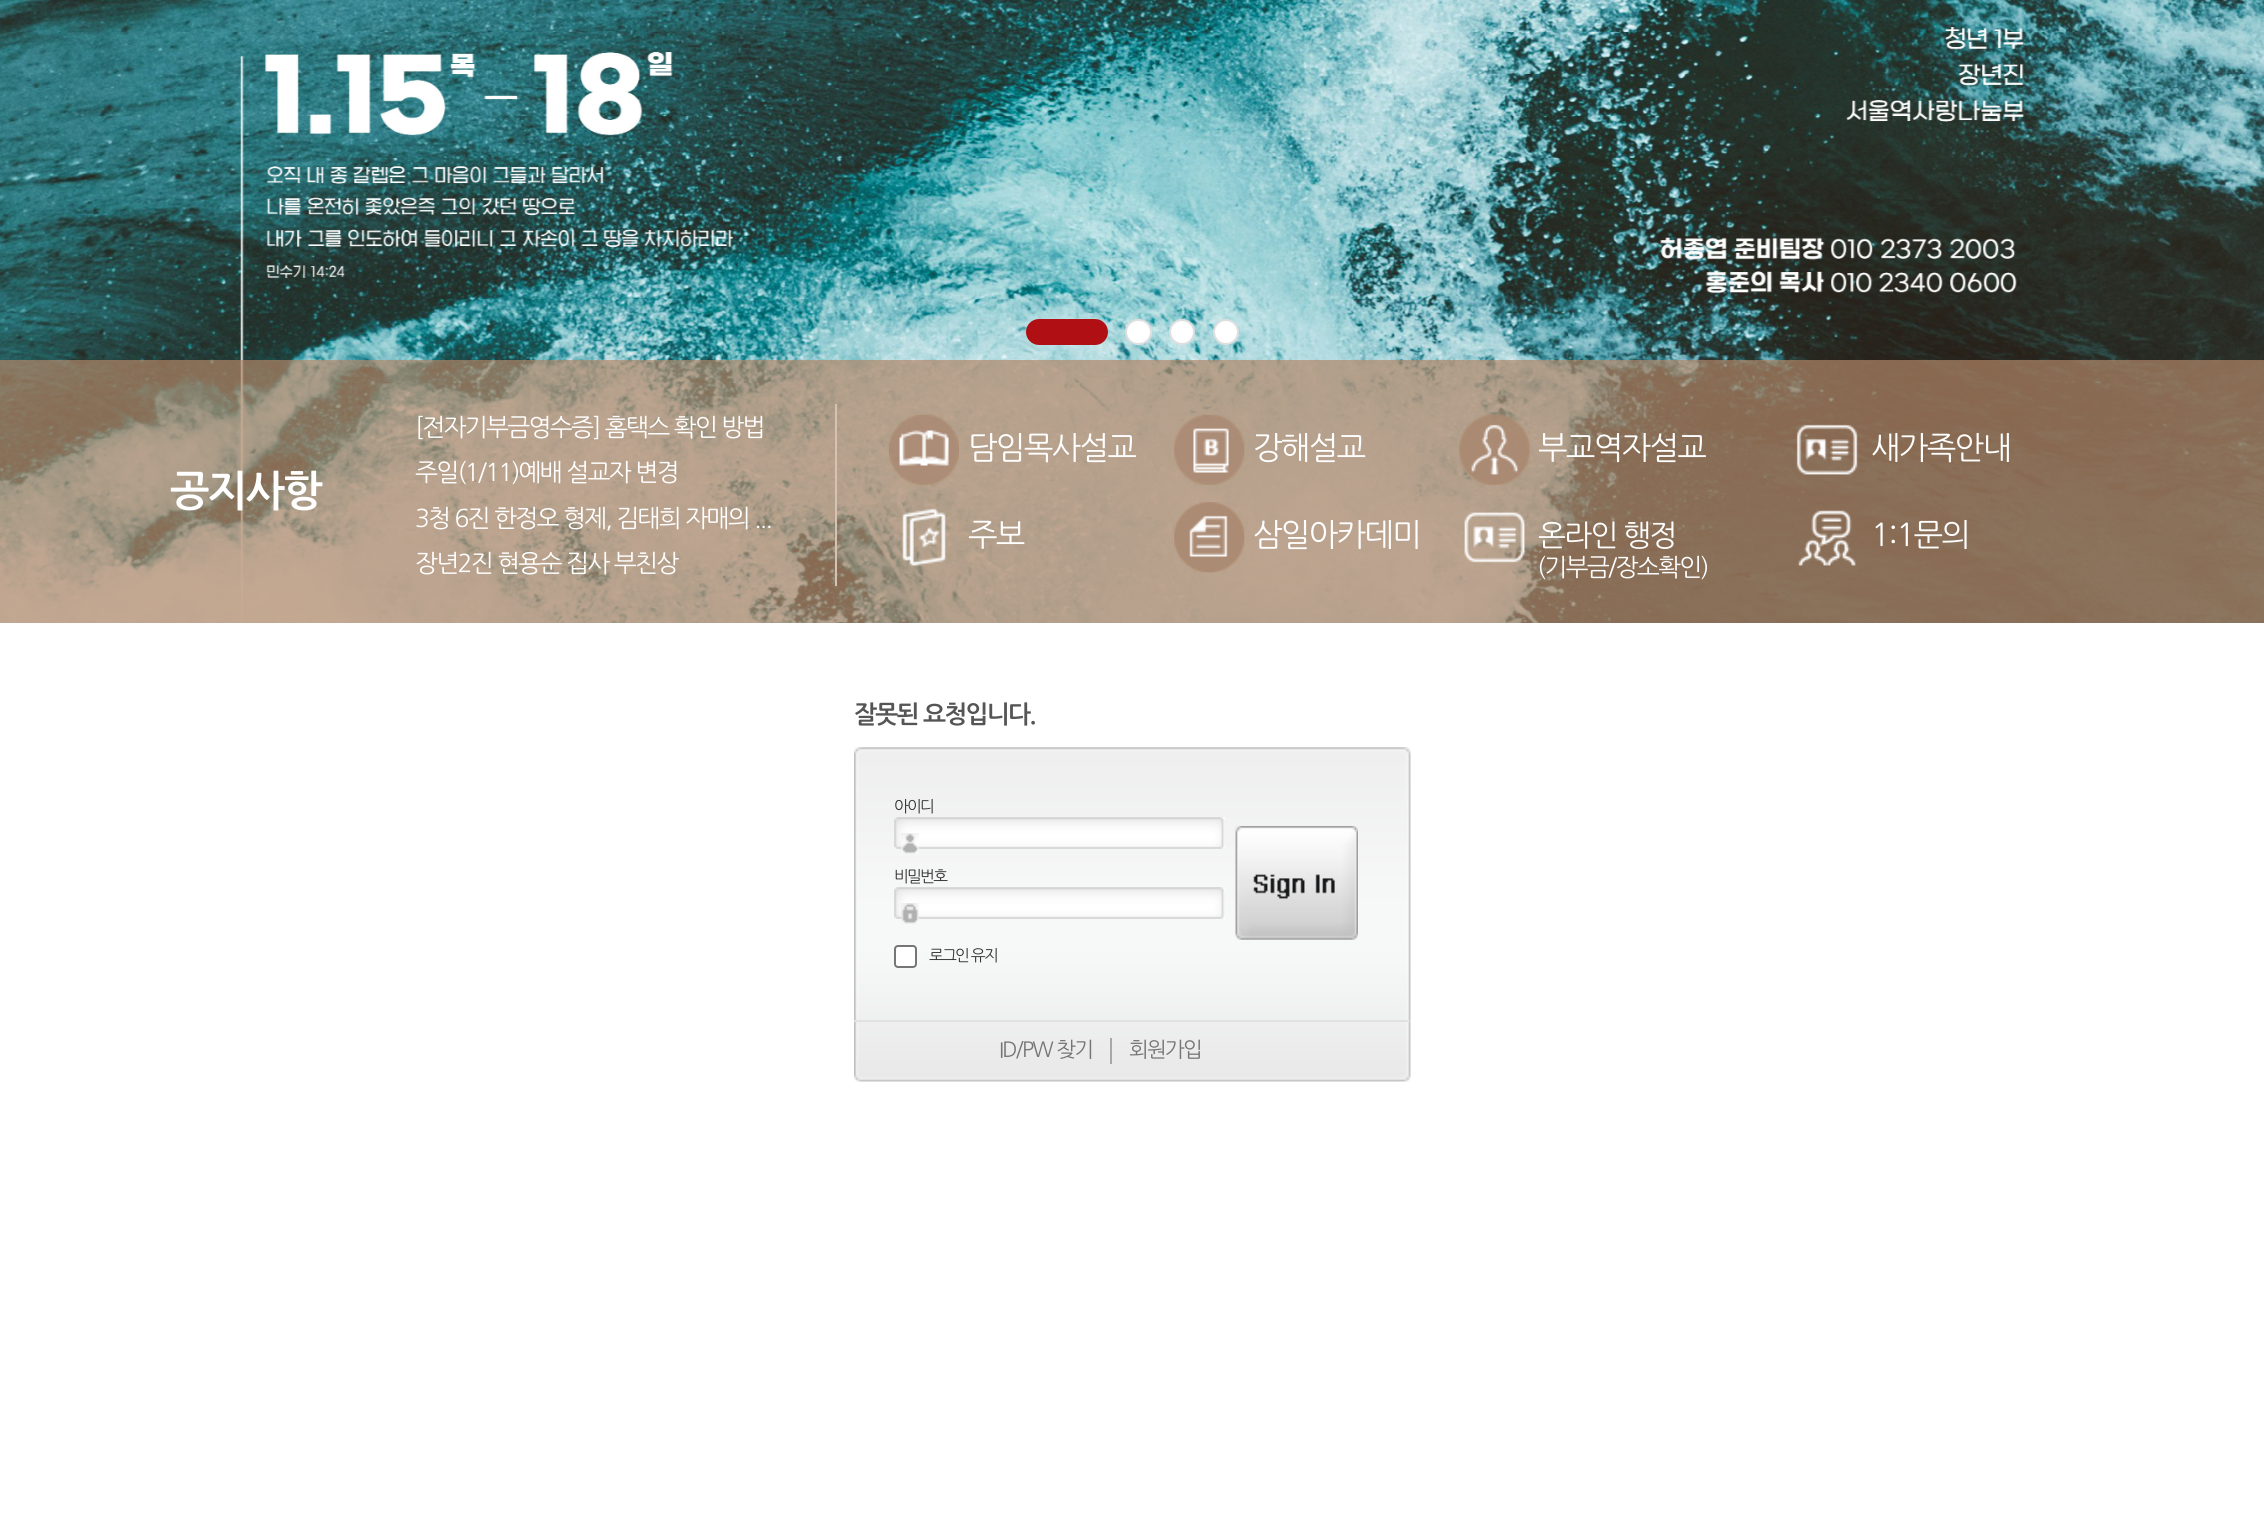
#include <cairo.h>
#include <math.h>
#include <stddef.h>

static cairo_t *ctx;

static void ink(unsigned color) {
    cairo_set_source_rgb(ctx, (color >> 16) / 255.0, (color >> 8 & 255) / 255.0, (color & 255) / 255.0);
}

static void write_spaced(double x, double y, const char *s, double letter, double word) {
    cairo_move_to(ctx, x, y);
    while (*s) {
        char ch[5] = {0};
        int n = 0;
        do ch[n++] = *s++; while ((*s & 0xC0) == 0x80);
        cairo_show_text(ctx, ch);
        cairo_rel_move_to(ctx, letter + word * (*ch == ' '), 0);
    }
}

static void block(double x, double y, double w, double h, unsigned color) {
    ink(color);
    cairo_rectangle(ctx, x, y, w, h);
    cairo_fill(ctx);
}

static void round_path(double x, double y, double w, double h, double r) {
    cairo_new_sub_path(ctx);
    cairo_arc(ctx, x + w - r, y + h - r, r, 0, M_PI / 2);
    cairo_arc(ctx, x + r, y + h - r, r, M_PI / 2, M_PI);
    cairo_arc(ctx, x + r, y + r, r, M_PI, 1.5 * M_PI);
    cairo_arc(ctx, x + w - r, y + r, r, 1.5 * M_PI, 2 * M_PI);
    cairo_close_path(ctx);
}

static void paste(const char *path, double x, double y, double w, double h) {
    cairo_surface_t *image = cairo_image_surface_create_from_png(path);
    cairo_save(ctx);
    cairo_set_source_surface(ctx, image, x, y);
    cairo_rectangle(ctx, x, y, w, h);
    cairo_fill(ctx);
    cairo_restore(ctx);
    cairo_surface_destroy(image);
}

int main(void) {
    cairo_surface_t *surface = cairo_image_surface_create(CAIRO_FORMAT_RGB24, 2264, 1514);
    ctx = cairo_create(surface);
    cairo_font_options_t *options = cairo_font_options_create();
    cairo_font_options_set_hint_metrics(options, CAIRO_HINT_METRICS_OFF);
    cairo_font_options_set_hint_style(options, CAIRO_HINT_STYLE_NONE);
    cairo_set_font_options(ctx, options);
    cairo_set_miter_limit(ctx, 4);
    ink(0xffffff);
    cairo_paint(ctx);
    paste("pic1.png", 0, 0, 2264, 623);
    ink(0xb01013);
    round_path(1027, 320, 80, 24, 12);
    cairo_fill_preserve(ctx);
    cairo_stroke(ctx);
    ink(0xffffff);
    round_path(1126, 320, 25, 24, 12);
    cairo_fill_preserve(ctx);
    ink(0xdfdfdf);
    cairo_stroke(ctx);
    ink(0xffffff);
    cairo_arc(ctx, 1182, 332, 12, 0, 2 * M_PI);
    cairo_fill_preserve(ctx);
    ink(0xdfdfdf);
    cairo_stroke(ctx);
    ink(0xffffff);
    cairo_arc(ctx, 1226, 332, 12, 0, 2 * M_PI);
    cairo_fill_preserve(ctx);
    ink(0xdfdfdf);
    cairo_stroke(ctx);
    cairo_set_source_rgba(ctx, 0.702, 0.525, 0.404, 0.7);
    cairo_rectangle(ctx, 0, 360, 2264, 263);
    cairo_fill(ctx);
    cairo_select_font_face(ctx, "NanumGothic", CAIRO_FONT_SLANT_NORMAL, CAIRO_FONT_WEIGHT_BOLD);
    cairo_set_font_size(ctx, 42);
    ink(0xffffff);
    write_spaced(170, 506, "공지사항", -1.75, 0);
    block(835, 404, 2, 182, 0xd8c1b1);
    cairo_select_font_face(ctx, "NanumGothic", CAIRO_FONT_SLANT_NORMAL, CAIRO_FONT_WEIGHT_NORMAL);
    cairo_set_font_size(ctx, 24.5);
    ink(0xffffff);
    write_spaced(415, 436, "[전자기부금영수증] 홈택스 확인 방법", -1.75, 0);
    write_spaced(415, 481, "주일(1/11)예배 설교자 변경", -1.75, 0);
    write_spaced(415, 527, "3청 6진 한정오 형제, 김태희 자매의 ...", -1.75, 0);
    write_spaced(415, 572, "장년2진 현용순 집사 부친상", -1.75, 0);
    paste("pic2.png", 889, 414, 70, 71);
    cairo_set_font_size(ctx, 31.5);
    write_spaced(968, 459, "담임목사설교", -1.75, 0);
    paste("pic3.png", 1174, 414, 71, 71);
    write_spaced(1253, 459, "강해설교", -1.75, 0);
    paste("pic4.png", 1459, 414, 71, 71);
    write_spaced(1538, 459, "부교역자설교", -1.75, 0);
    paste("pic5.png", 1796, 424, 62, 51);
    write_spaced(1871, 459, "새가족안내", -1.75, 0);
    paste("pic6.png", 902, 508, 44, 58);
    write_spaced(968, 546, "주보", -1.75, 0);
    paste("pic7.png", 1174, 502, 71, 71);
    write_spaced(1253, 546, "삼일아카데미", -1.75, 0);
    paste("pic8.png", 1464, 512, 61, 51);
    cairo_set_font_size(ctx, 29.75);
    write_spaced(1538, 546, "온라인 행정", -1.75, 0);
    cairo_set_font_size(ctx, 24.5);
    write_spaced(1537, 576, "(기부금/장소확인)", -1.75, 0);
    paste("pic9.png", 1798, 510, 58, 56);
    cairo_set_font_size(ctx, 31.5);
    write_spaced(1871, 546, "1:1문의", -1.75, 0);
    cairo_select_font_face(ctx, "NanumGothic", CAIRO_FONT_SLANT_NORMAL, CAIRO_FONT_WEIGHT_BOLD);
    cairo_set_font_size(ctx, 24.5);
    ink(0x555555);
    write_spaced(854, 723, "잘못된 요청입니다.", -1.75, 0);
    paste("pic10.png", 854, 747, 557, 335);
    cairo_select_font_face(ctx, "NanumGothic", CAIRO_FONT_SLANT_NORMAL, CAIRO_FONT_WEIGHT_NORMAL);
    cairo_set_font_size(ctx, 15.75);
    ink(0x333333);
    write_spaced(894, 812, "아이디", -1.75, 0);
    paste("pic11.png", 894, 817, 331, 32);
    paste("pic12.png", 901, 833, 18, 21);
    write_spaced(894, 882, "비밀번호", -1.75, 0);
    paste("pic13.png", 894, 887, 331, 32);
    paste("pic14.png", 901, 903, 18, 21);
    ink(0xffffff);
    round_path(895, 946, 21, 21, 3);
    cairo_fill_preserve(ctx);
    ink(0x767676);
    cairo_stroke(ctx);
    ink(0x333333);
    write_spaced(929, 961, "로그인 유지", -1.75, 0);
    paste("pic15.png", 1235, 826, 123, 114);
    block(854, 1020, 557, 2, 0xe1e1e1);
    block(1110, 1038, 2, 26, 0xa8a8a8);
    cairo_set_font_size(ctx, 21);
    ink(0x757575);
    write_spaced(999, 1057, "ID/PW 찾기", -1.75, 0);
    write_spaced(1129, 1057, "회원가입", -1.75, 0);
    cairo_surface_write_to_png(surface, "screenshot.png");
    cairo_font_options_destroy(options);
    cairo_destroy(ctx);
    cairo_surface_destroy(surface);
    return 0;
}
